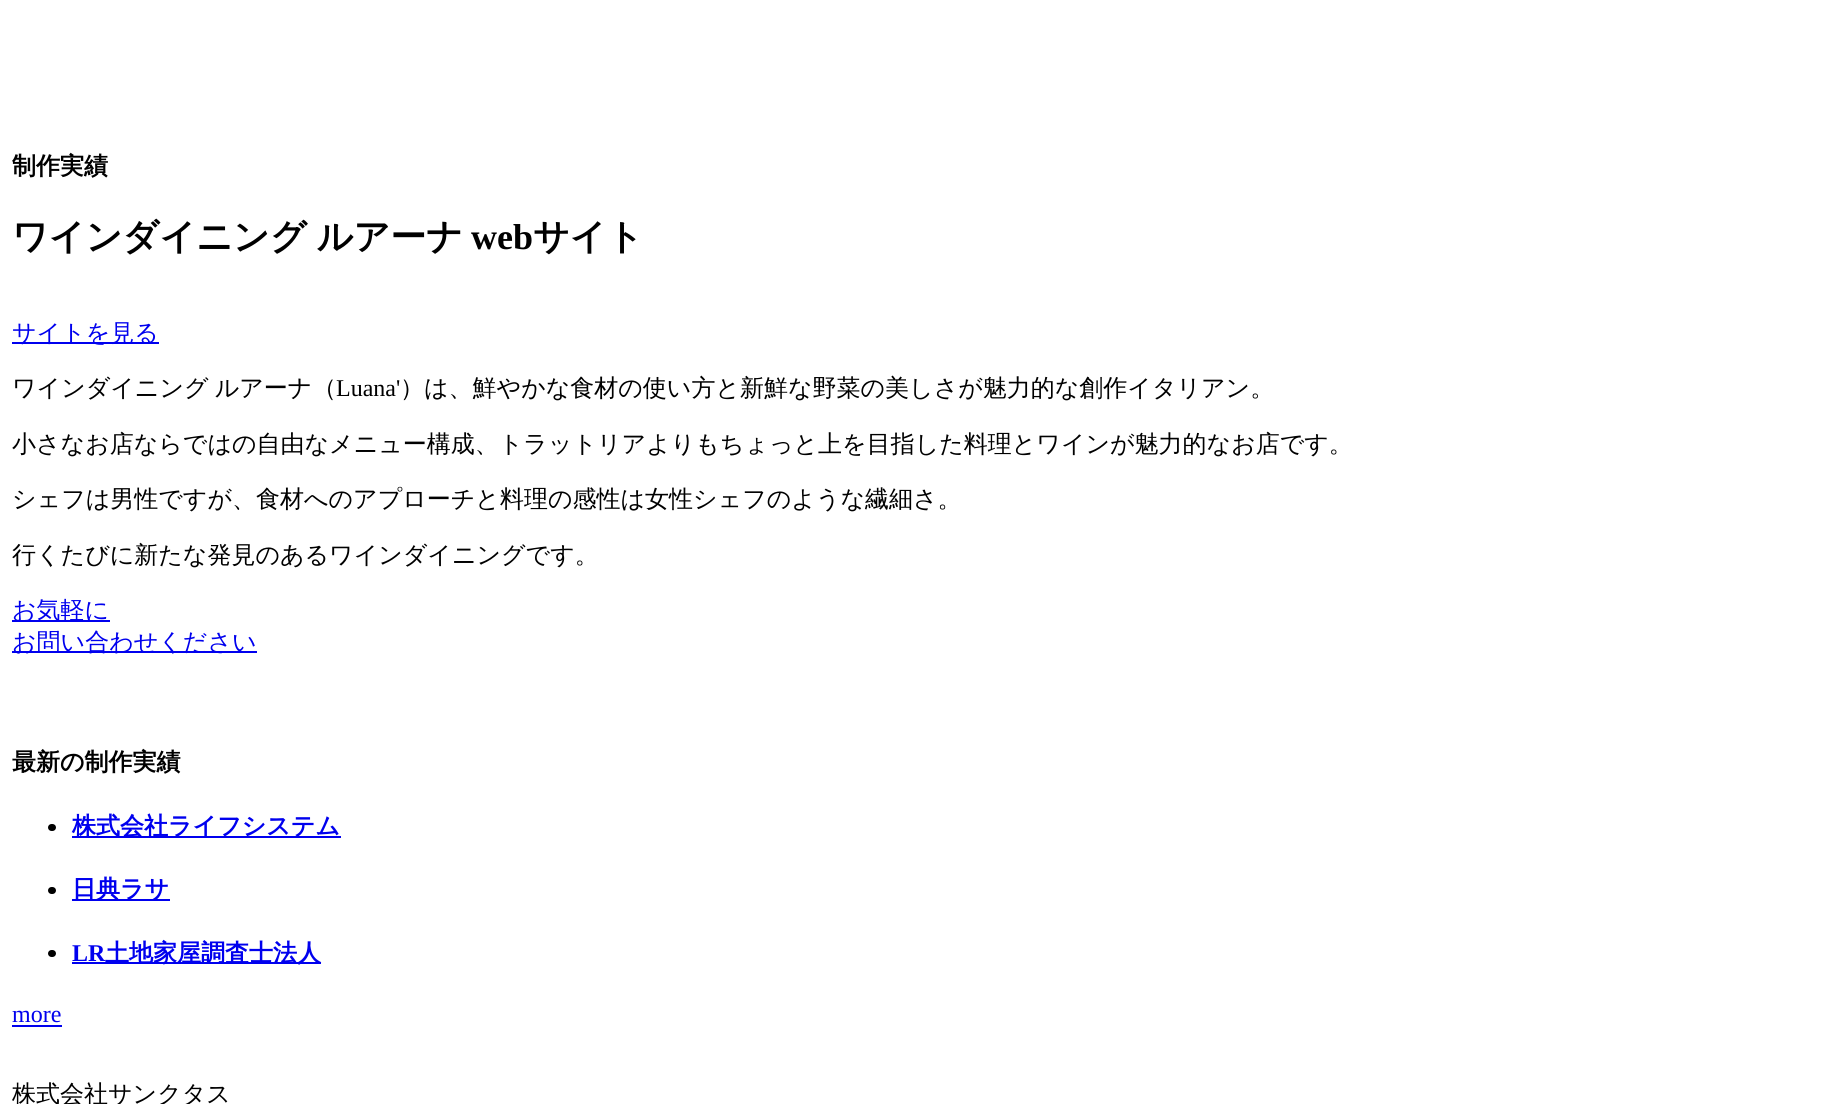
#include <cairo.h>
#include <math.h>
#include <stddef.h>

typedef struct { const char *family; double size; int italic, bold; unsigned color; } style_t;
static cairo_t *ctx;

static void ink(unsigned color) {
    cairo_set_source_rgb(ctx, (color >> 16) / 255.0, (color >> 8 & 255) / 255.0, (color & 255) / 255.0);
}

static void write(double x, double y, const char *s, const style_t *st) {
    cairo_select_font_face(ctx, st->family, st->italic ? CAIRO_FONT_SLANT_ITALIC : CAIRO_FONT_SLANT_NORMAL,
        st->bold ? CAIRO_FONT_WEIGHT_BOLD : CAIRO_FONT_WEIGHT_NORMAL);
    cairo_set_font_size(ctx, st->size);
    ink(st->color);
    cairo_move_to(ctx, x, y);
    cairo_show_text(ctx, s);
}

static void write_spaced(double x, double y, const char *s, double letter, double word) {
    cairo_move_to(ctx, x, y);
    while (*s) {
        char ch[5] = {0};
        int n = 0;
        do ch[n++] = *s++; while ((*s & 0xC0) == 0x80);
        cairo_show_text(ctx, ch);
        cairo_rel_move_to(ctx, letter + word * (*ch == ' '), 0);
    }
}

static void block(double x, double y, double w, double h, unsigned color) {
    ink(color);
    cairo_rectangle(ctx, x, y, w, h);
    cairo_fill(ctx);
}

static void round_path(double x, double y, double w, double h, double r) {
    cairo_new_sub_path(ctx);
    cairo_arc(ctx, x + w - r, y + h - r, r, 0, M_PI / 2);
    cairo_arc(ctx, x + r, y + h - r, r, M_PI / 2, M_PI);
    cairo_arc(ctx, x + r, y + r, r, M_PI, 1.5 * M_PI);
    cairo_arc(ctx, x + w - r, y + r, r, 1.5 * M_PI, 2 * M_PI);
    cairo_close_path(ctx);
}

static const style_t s1 = {"WenQuanYi Zen Hei", 24, 0, 1, 0x000000};
static const style_t s2 = {"Liberation Serif", 36, 0, 1, 0x000000};
static const style_t s3 = {"WenQuanYi Zen Hei", 36, 0, 1, 0x000000};
static const style_t s4 = {"WenQuanYi Zen Hei Medium", 24, 0, 0, 0x0000ee};
static const style_t s5 = {"Liberation Serif", 24, 0, 0, 0x000000};
static const style_t s6 = {"WenQuanYi Zen Hei Medium", 24, 0, 0, 0x000000};
static const style_t s7 = {"WenQuanYi Zen Hei", 24, 0, 1, 0x0000ee};
static const style_t s8 = {"Liberation Serif", 24, 0, 1, 0x0000ee};
static const style_t s9 = {"Liberation Serif", 24, 0, 0, 0x0000ee};

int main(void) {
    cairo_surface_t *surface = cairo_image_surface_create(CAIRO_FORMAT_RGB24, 1844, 1104);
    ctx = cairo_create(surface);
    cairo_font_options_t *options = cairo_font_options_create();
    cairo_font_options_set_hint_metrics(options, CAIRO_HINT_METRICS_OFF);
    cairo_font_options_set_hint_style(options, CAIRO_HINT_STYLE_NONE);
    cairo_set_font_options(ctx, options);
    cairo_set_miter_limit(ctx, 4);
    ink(0xffffff);
    cairo_paint(ctx);
    write(12, 174, "制作実績", &s1);
    cairo_set_font_size(ctx, 36);
    write_spaced(12, 249, "ワインダイニング ルアーナ", 0, -1);
    write(471, 249, "web", &s2);
    write(533, 249, "サイト", &s3);
    block(12, 342, 147, 2, 0x0000ee);
    write(12, 341, "サイトを見る", &s4);
    ink(0x000000);
    write_spaced(12, 396, "ワインダイニング ルアーナ（", 0, -1);
    write(336, 396, "Luana'", &s5);
    write(400, 396, "）は、鮮やかな食材の使い方と新鮮な野菜の美しさが魅力的な創作イタリアン。", &s6);
    write(12, 452, "小さなお店ならではの自由なメニュー構成、トラットリアよりもちょっと上を目指した料理とワインが魅力的なお店です。", &s6);
    write(12, 507, "シェフは男性ですが、食材へのアプローチと料理の感性は女性シェフのような繊細さ。", &s6);
    write(12, 563, "行くたびに新たな発見のあるワインダイニングです。", &s6);
    block(12, 620, 98, 2, 0x0000ee);
    write(12, 618, "お気軽に", &s4);
    block(12, 651, 245, 2, 0x0000ee);
    write(12, 650, "お問い合わせください", &s4);
    write(12, 770, "最新の制作実績", &s1);
    round_path(48, 824, 8, 7, 3.5);
    cairo_fill(ctx);
    block(72, 836, 269, 2, 0x0000ee);
    write(72, 834, "株式会社ライフシステム", &s7);
    ink(0x000000);
    round_path(48, 887, 8, 7, 3.5);
    cairo_fill(ctx);
    block(72, 899, 98, 2, 0x0000ee);
    write(72, 897, "日典ラサ", &s7);
    ink(0x000000);
    round_path(48, 950, 8, 7, 3.5);
    cairo_fill(ctx);
    write(72, 961, "LR", &s8);
    block(72, 962, 249, 2, 0x0000ee);
    write(105, 961, "土地家屋調査士法人", &s7);
    write(12, 1022, "more", &s9);
    block(12, 1025, 50, 2, 0x0000ee);
    write(12, 1102, "株式会社サンクタス", &s6);
    cairo_surface_write_to_png(surface, "screenshot.png");
    cairo_font_options_destroy(options);
    cairo_destroy(ctx);
    cairo_surface_destroy(surface);
    return 0;
}
